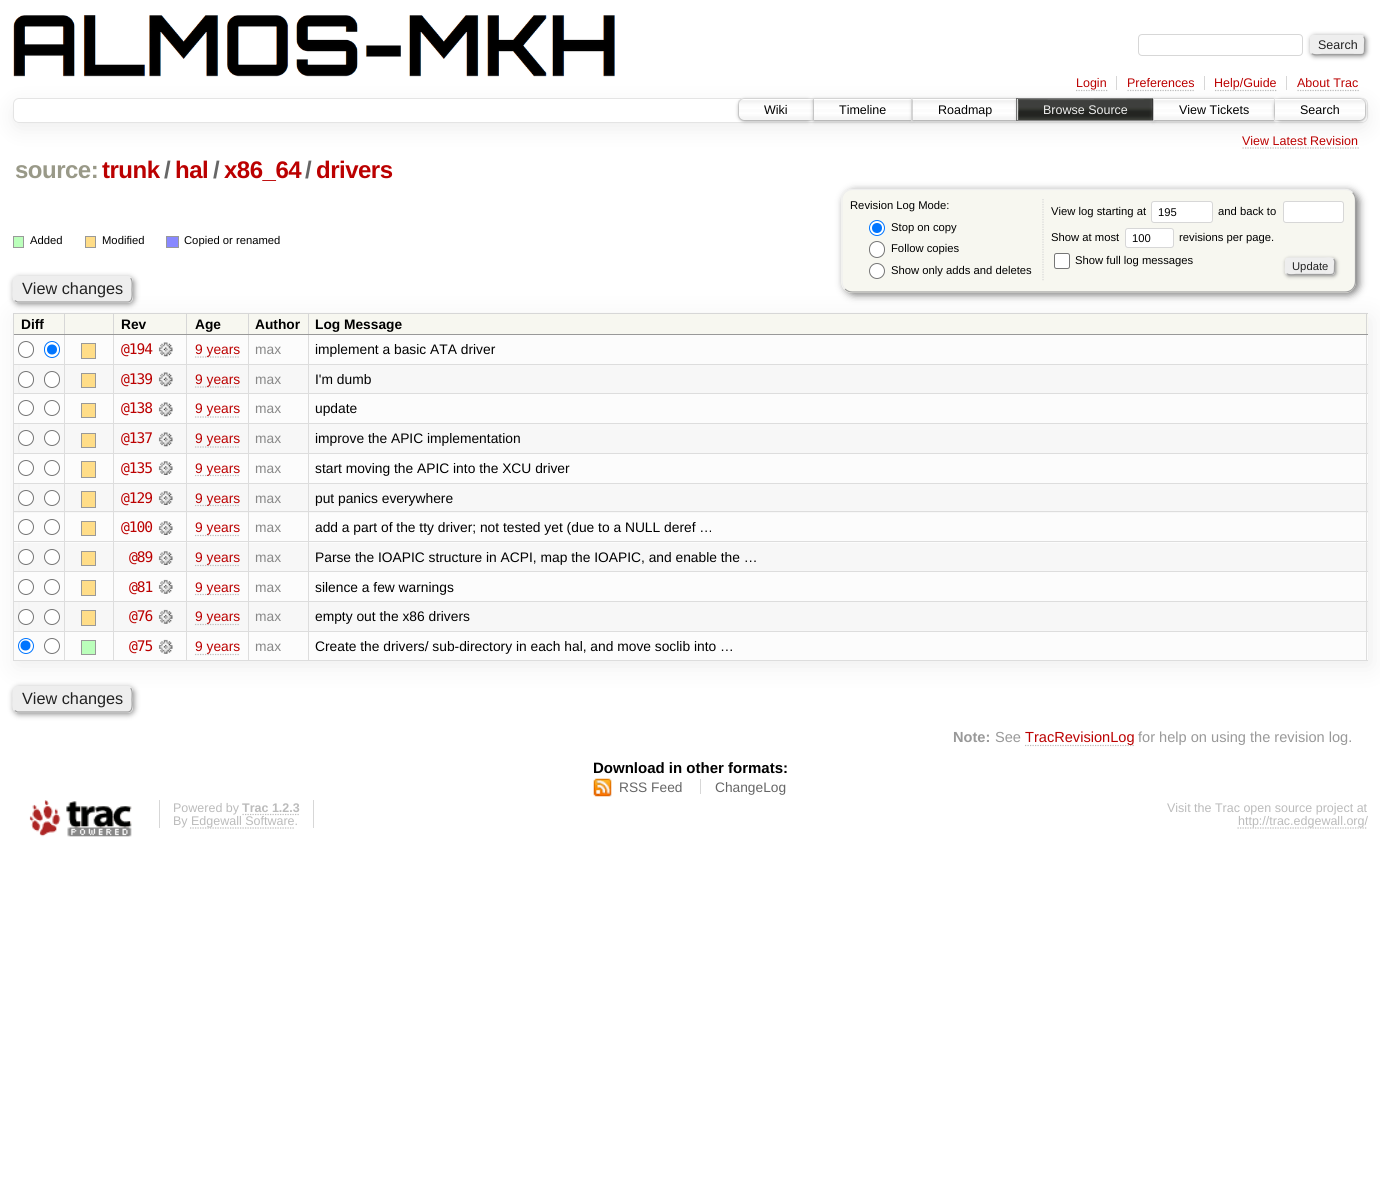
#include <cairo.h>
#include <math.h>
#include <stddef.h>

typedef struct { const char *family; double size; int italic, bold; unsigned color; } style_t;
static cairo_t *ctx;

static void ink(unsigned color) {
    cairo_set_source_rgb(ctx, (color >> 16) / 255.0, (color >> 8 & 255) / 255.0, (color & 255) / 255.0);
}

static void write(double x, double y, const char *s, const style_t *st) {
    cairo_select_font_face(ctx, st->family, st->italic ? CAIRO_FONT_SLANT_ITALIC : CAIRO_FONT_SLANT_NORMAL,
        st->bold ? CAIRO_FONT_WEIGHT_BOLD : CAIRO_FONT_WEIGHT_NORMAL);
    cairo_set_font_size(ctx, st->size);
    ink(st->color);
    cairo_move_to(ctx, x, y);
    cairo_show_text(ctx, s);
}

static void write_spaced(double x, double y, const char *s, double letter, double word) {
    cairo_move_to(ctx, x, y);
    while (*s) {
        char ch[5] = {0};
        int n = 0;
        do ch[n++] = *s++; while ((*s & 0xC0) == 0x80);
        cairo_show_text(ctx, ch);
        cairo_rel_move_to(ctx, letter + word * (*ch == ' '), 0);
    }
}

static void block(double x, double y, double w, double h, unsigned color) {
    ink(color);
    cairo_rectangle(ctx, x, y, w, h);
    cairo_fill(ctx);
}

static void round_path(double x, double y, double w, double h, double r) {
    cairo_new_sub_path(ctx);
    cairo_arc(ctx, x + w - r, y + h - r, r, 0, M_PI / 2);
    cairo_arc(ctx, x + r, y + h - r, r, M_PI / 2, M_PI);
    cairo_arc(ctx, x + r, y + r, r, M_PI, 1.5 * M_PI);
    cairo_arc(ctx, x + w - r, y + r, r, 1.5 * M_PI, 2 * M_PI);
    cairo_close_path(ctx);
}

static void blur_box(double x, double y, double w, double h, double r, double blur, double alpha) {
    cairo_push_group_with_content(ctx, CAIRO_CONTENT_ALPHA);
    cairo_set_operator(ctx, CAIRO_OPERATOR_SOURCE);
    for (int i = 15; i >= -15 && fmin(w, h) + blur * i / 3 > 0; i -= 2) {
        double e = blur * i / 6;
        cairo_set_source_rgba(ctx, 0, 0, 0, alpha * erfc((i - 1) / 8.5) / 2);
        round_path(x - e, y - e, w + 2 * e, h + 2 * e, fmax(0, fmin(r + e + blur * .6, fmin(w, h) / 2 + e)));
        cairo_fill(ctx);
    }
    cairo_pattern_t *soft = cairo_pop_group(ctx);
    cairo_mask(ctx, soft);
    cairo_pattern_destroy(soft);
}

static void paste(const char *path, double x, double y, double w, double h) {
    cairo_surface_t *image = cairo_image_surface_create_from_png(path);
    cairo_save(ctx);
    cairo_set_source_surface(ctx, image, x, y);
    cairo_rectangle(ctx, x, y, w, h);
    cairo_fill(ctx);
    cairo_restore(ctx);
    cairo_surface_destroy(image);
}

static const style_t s1 = {"Liberation Sans", 12.5, 0, 0, 0x222222};
static const style_t s2 = {"Liberation Sans", 12.5, 0, 0, 0xbb0000};
static const style_t s3 = {"Liberation Sans", 12.5, 0, 0, 0x000000};
static const style_t s4 = {"Liberation Sans", 12.5, 0, 0, 0xeeeeee};
static const style_t s5 = {"Liberation Sans", 11.25, 0, 0, 0x000000};
static const style_t s6 = {"Liberation Sans", 11.25, 0, 0, 0x222222};
static const style_t s7 = {"Liberation Sans", 16.25, 0, 0, 0x222222};
static const style_t s8 = {"Liberation Sans", 13.75, 0, 1, 0x000000};
static const style_t s9 = {"Liberation Sans", 13.8, 0, 0, 0xbb0000};
static const style_t s10 = {"Liberation Sans", 13.8, 0, 0, 0x888888};
static const style_t s11 = {"Liberation Sans", 13.8, 0, 0, 0x000000};
static const style_t s12 = {"Liberation Sans", 14.6, 0, 1, 0x999999};
static const style_t s13 = {"Liberation Sans", 14.6, 0, 0, 0x999999};
static const style_t s14 = {"Liberation Sans", 14.6, 0, 0, 0xbb0000};
static const style_t s15 = {"Liberation Sans", 15, 0, 1, 0x000000};
static const style_t s16 = {"Liberation Sans", 13.75, 0, 0, 0x666666};
static const style_t s17 = {"Liberation Sans", 12.5, 0, 0, 0xbbbbbb};
static const style_t s18 = {"Liberation Sans", 12.5, 0, 1, 0xbbbbbb};

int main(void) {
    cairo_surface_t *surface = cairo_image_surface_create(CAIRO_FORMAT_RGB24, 1380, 1192);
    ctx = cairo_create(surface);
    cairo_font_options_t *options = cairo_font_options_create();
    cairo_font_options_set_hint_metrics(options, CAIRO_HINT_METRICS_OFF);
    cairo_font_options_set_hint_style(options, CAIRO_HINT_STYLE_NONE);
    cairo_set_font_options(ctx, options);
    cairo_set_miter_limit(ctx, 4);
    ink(0xffffff);
    cairo_paint(ctx);
    cairo_save(ctx);
    cairo_set_fill_rule(ctx, CAIRO_FILL_RULE_EVEN_ODD);
    cairo_new_path(ctx);
    cairo_move_to(ctx, 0, 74);
    cairo_line_to(ctx, 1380, 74);
    cairo_line_to(ctx, 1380, 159);
    cairo_line_to(ctx, 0, 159);
    cairo_close_path(ctx);
    cairo_move_to(ctx, 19, 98);
    cairo_line_to(ctx, 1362, 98);
    cairo_curve_to(ctx, 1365.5, 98, 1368, 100.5, 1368, 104);
    cairo_line_to(ctx, 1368, 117);
    cairo_curve_to(ctx, 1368, 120.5, 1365.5, 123, 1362, 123);
    cairo_line_to(ctx, 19, 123);
    cairo_curve_to(ctx, 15.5, 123, 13, 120.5, 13, 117);
    cairo_line_to(ctx, 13, 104);
    cairo_curve_to(ctx, 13, 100.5, 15.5, 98, 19, 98);
    cairo_close_path(ctx);
    cairo_clip(ctx);
    ink(0xeeeeee);
    blur_box(13, 104, 1355, 25, 6, 9.5, 1);
    cairo_restore(ctx);
    paste("pic1.png", 13, 15, 602, 62);
    round_path(1138.5, 34.5, 164, 21, 3.5);
    ink(0xd7d7d7);
    cairo_set_line_width(ctx, 1);
    cairo_stroke(ctx);
    ink(0x888888);
    blur_box(1311, 36, 55, 20, 4, 2.5, 1);
    ink(0xeeeeee);
    round_path(1310, 35, 55, 20, 4);
    cairo_fill(ctx);
    cairo_new_path(ctx);
    cairo_move_to(ctx, 1363.5, 36.5);
    cairo_curve_to(ctx, 1365.5, 38.5, 1364.5, 42.5, 1364.5, 45);
    cairo_curve_to(ctx, 1364.5, 56, 1365, 54.5, 1353.5, 54.5);
    cairo_line_to(ctx, 1321.5, 54.5);
    cairo_curve_to(ctx, 1321, 54.5, 1313.5, 55.5, 1311.5, 53.5);
    ink(0x9f9f9f);
    cairo_set_line_width(ctx, 1.2);
    cairo_stroke(ctx);
    cairo_new_path(ctx);
    cairo_move_to(ctx, 1311.5, 53.5);
    cairo_curve_to(ctx, 1309.5, 51.5, 1310.5, 47.5, 1310.5, 45);
    cairo_curve_to(ctx, 1310.5, 34, 1310, 35.5, 1321.5, 35.5);
    cairo_line_to(ctx, 1353.5, 35.5);
    cairo_curve_to(ctx, 1354, 35.5, 1361.5, 34.5, 1363.5, 36.5);
    ink(0xeeeeee);
    cairo_stroke(ctx);
    write(1318, 49, "Search", &s1);
    block(1116, 76, 1, 14, 0xd7d7d7);
    cairo_new_path(ctx);
    cairo_move_to(ctx, 1076, 90.5);
    cairo_line_to(ctx, 1107.5, 90.5);
    ink(0xbbbbbb);
    cairo_set_dash(ctx, (double[]){1.25, 1.25}, 2, 0);
    cairo_stroke(ctx);
    write(1076, 87, "Login", &s2);
    block(1204, 76, 1, 14, 0xd7d7d7);
    write(1127, 87, "Preferences", &s2);
    cairo_new_path(ctx);
    cairo_move_to(ctx, 1127.5, 90.5);
    cairo_line_to(ctx, 1195, 90.5);
    ink(0xbbbbbb);
    cairo_stroke(ctx);
    block(1286, 76, 1, 14, 0xd7d7d7);
    cairo_new_path(ctx);
    cairo_move_to(ctx, 1215, 90.5);
    cairo_line_to(ctx, 1277.5, 90.5);
    ink(0xbbbbbb);
    cairo_stroke(ctx);
    write(1214, 87, "Help/Guide", &s2);
    write(1297, 87, "About Trac", &s2);
    cairo_new_path(ctx);
    cairo_move_to(ctx, 1297.5, 90.5);
    cairo_line_to(ctx, 1359, 90.5);
    ink(0xbbbbbb);
    cairo_stroke(ctx);
    round_path(13.5, 98.5, 1354, 24, 5.5);
    ink(0xe4e4e4);
    cairo_set_line_width(ctx, 1);
    cairo_set_dash(ctx, NULL, 0, 0);
    cairo_stroke(ctx);
    ink(0xffffff);
    cairo_new_path(ctx);
    cairo_move_to(ctx, 744, 98);
    cairo_line_to(ctx, 814, 98);
    cairo_line_to(ctx, 814, 121);
    cairo_line_to(ctx, 744, 121);
    cairo_curve_to(ctx, 740.5, 121, 738, 118.5, 738, 115);
    cairo_line_to(ctx, 738, 104);
    cairo_curve_to(ctx, 738, 100.5, 740.5, 98, 744, 98);
    cairo_close_path(ctx);
    cairo_fill(ctx);
    paste("pic2.png", 738, 100, 75, 21);
    cairo_new_path(ctx);
    cairo_move_to(ctx, 744, 98.5);
    cairo_line_to(ctx, 813.5, 98.5);
    cairo_line_to(ctx, 813.5, 120.5);
    cairo_line_to(ctx, 744, 120.5);
    cairo_curve_to(ctx, 741, 120.5, 738.5, 118, 738.5, 115);
    cairo_line_to(ctx, 738.5, 104);
    cairo_curve_to(ctx, 738.5, 101, 741, 98.5, 744, 98.5);
    cairo_close_path(ctx);
    ink(0xe4e4e4);
    cairo_stroke(ctx);
    cairo_save(ctx);
    cairo_set_fill_rule(ctx, CAIRO_FILL_RULE_EVEN_ODD);
    cairo_new_path(ctx);
    cairo_move_to(ctx, 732, 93);
    cairo_line_to(ctx, 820, 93);
    cairo_line_to(ctx, 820, 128);
    cairo_line_to(ctx, 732, 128);
    cairo_close_path(ctx);
    cairo_move_to(ctx, 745, 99);
    cairo_line_to(ctx, 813, 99);
    cairo_line_to(ctx, 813, 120);
    cairo_line_to(ctx, 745, 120);
    cairo_curve_to(ctx, 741.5, 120, 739, 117.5, 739, 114);
    cairo_line_to(ctx, 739, 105);
    cairo_curve_to(ctx, 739, 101.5, 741.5, 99, 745, 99);
    cairo_close_path(ctx);
    cairo_clip(ctx);
    ink(0x999999);
    blur_box(739, 100, 74, 21, 6, 2, 1);
    cairo_restore(ctx);
    write(764, 114, "Wiki", &s3);
    block(814, 100, 3, 20, 0xffffff);
    paste("pic3.png", 812, 100, 99, 20);
    cairo_rectangle(ctx, 813.5, 98.5, 99, 22);
    ink(0xe4e4e4);
    cairo_stroke(ctx);
    cairo_save(ctx);
    cairo_set_fill_rule(ctx, CAIRO_FILL_RULE_EVEN_ODD);
    cairo_new_path(ctx);
    cairo_move_to(ctx, 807, 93);
    cairo_line_to(ctx, 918, 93);
    cairo_line_to(ctx, 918, 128);
    cairo_line_to(ctx, 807, 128);
    cairo_close_path(ctx);
    cairo_move_to(ctx, 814, 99);
    cairo_line_to(ctx, 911, 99);
    cairo_line_to(ctx, 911, 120);
    cairo_line_to(ctx, 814, 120);
    cairo_close_path(ctx);
    cairo_clip(ctx);
    ink(0x999999);
    blur_box(814, 100, 97, 21, 0, 2, 1);
    cairo_restore(ctx);
    write(839, 114, "Timeline", &s3);
    block(912, 99, 3, 21, 0xffffff);
    paste("pic4.png", 912, 100, 104, 20);
    cairo_rectangle(ctx, 911.5, 98.5, 106, 22);
    ink(0xe4e4e4);
    cairo_stroke(ctx);
    cairo_save(ctx);
    cairo_set_fill_rule(ctx, CAIRO_FILL_RULE_EVEN_ODD);
    cairo_new_path(ctx);
    cairo_move_to(ctx, 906, 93);
    cairo_line_to(ctx, 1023, 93);
    cairo_line_to(ctx, 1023, 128);
    cairo_line_to(ctx, 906, 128);
    cairo_close_path(ctx);
    cairo_move_to(ctx, 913, 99);
    cairo_line_to(ctx, 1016, 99);
    cairo_line_to(ctx, 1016, 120);
    cairo_line_to(ctx, 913, 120);
    cairo_close_path(ctx);
    cairo_clip(ctx);
    ink(0x999999);
    blur_box(913, 100, 103, 21, 0, 2, 1);
    cairo_restore(ctx);
    write(938, 114, "Roadmap", &s3);
    block(1017, 99, 1, 21, 0xffffff);
    paste("pic5.png", 1017, 100, 1, 20);
    cairo_rectangle(ctx, 1016.5, 98.5, 137, 22);
    ink(0x666666);
    cairo_stroke(ctx);
    ink(0x999999);
    blur_box(1018, 100, 135, 21, 0, 2, 1);
    block(1018, 99, 135, 21, 0x000000);
    paste("pic6.png", 1017, 98, 136, 22);
    write(1043, 114, "Browse Source", &s4);
    block(1154, 99, 3, 21, 0xffffff);
    paste("pic7.png", 1152, 100, 122, 20);
    cairo_rectangle(ctx, 1153.5, 98.5, 121, 22);
    ink(0xe4e4e4);
    cairo_stroke(ctx);
    cairo_save(ctx);
    cairo_set_fill_rule(ctx, CAIRO_FILL_RULE_EVEN_ODD);
    cairo_new_path(ctx);
    cairo_move_to(ctx, 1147, 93);
    cairo_line_to(ctx, 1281, 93);
    cairo_line_to(ctx, 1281, 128);
    cairo_line_to(ctx, 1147, 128);
    cairo_close_path(ctx);
    cairo_move_to(ctx, 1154, 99);
    cairo_line_to(ctx, 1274, 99);
    cairo_line_to(ctx, 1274, 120);
    cairo_line_to(ctx, 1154, 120);
    cairo_close_path(ctx);
    cairo_clip(ctx);
    ink(0x999999);
    blur_box(1154, 100, 120, 21, 0, 2, 1);
    cairo_restore(ctx);
    write(1179, 114, "View Tickets", &s3);
    ink(0xffffff);
    cairo_new_path(ctx);
    cairo_move_to(ctx, 1274, 98);
    cairo_line_to(ctx, 1360, 98);
    cairo_curve_to(ctx, 1363.5, 98, 1366, 100.5, 1366, 104);
    cairo_line_to(ctx, 1366, 115);
    cairo_curve_to(ctx, 1366, 118.5, 1363.5, 121, 1360, 121);
    cairo_line_to(ctx, 1274, 121);
    cairo_close_path(ctx);
    cairo_fill(ctx);
    paste("pic8.png", 1275, 100, 91, 21);
    cairo_new_path(ctx);
    cairo_move_to(ctx, 1274.5, 98.5);
    cairo_line_to(ctx, 1360, 98.5);
    cairo_curve_to(ctx, 1363, 98.5, 1365.5, 101, 1365.5, 104);
    cairo_line_to(ctx, 1365.5, 115);
    cairo_curve_to(ctx, 1365.5, 118, 1363, 120.5, 1360, 120.5);
    cairo_line_to(ctx, 1274.5, 120.5);
    cairo_close_path(ctx);
    ink(0xe4e4e4);
    cairo_stroke(ctx);
    cairo_save(ctx);
    cairo_set_fill_rule(ctx, CAIRO_FILL_RULE_EVEN_ODD);
    cairo_new_path(ctx);
    cairo_move_to(ctx, 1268, 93);
    cairo_line_to(ctx, 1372, 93);
    cairo_line_to(ctx, 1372, 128);
    cairo_line_to(ctx, 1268, 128);
    cairo_close_path(ctx);
    cairo_move_to(ctx, 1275, 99);
    cairo_line_to(ctx, 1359, 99);
    cairo_curve_to(ctx, 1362.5, 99, 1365, 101.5, 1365, 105);
    cairo_line_to(ctx, 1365, 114);
    cairo_curve_to(ctx, 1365, 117.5, 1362.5, 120, 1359, 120);
    cairo_line_to(ctx, 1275, 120);
    cairo_close_path(ctx);
    cairo_clip(ctx);
    ink(0x999999);
    blur_box(1275, 100, 90, 21, 6, 2, 1);
    cairo_restore(ctx);
    write(1300, 114, "Search", &s3);
    write(1242, 145, "View Latest Revision", &s2);
    cairo_new_path(ctx);
    cairo_move_to(ctx, 1242.5, 148);
    cairo_line_to(ctx, 1359, 148);
    ink(0xbbbbbb);
    cairo_set_line_width(ctx, 1.2);
    cairo_set_dash(ctx, (double[]){1.25, 1.25}, 2, 0);
    cairo_stroke(ctx);
    cairo_select_font_face(ctx, "Liberation Sans", CAIRO_FONT_SLANT_NORMAL, CAIRO_FONT_WEIGHT_BOLD);
    cairo_set_font_size(ctx, 24);
    ink(0x999988);
    write_spaced(15, 178, "source:", -0.5, 0);
    ink(0xbb0000);
    write_spaced(102, 178, "trunk", -0.5, 0);
    ink(0x666666);
    write_spaced(164, 178, "/", -0.5, 0);
    ink(0xbb0000);
    write_spaced(175, 178, "hal", -0.5, 0);
    ink(0x666666);
    write_spaced(213, 178, "/", -0.5, 0);
    ink(0xbb0000);
    write_spaced(224, 178, "x86_64", -0.5, 0);
    ink(0x666666);
    write_spaced(305, 178, "/", -0.5, 0);
    ink(0xbb0000);
    write_spaced(316, 178, "drivers", -0.5, 0);
    ink(0xbbffbb);
    cairo_rectangle(ctx, 13.5, 236.5, 10, 11);
    cairo_fill_preserve(ctx);
    ink(0x999999);
    cairo_set_line_width(ctx, 1);
    cairo_set_dash(ctx, NULL, 0, 0);
    cairo_stroke(ctx);
    write(30, 244, "Added", &s5);
    ink(0xffdd88);
    cairo_rectangle(ctx, 85.5, 236.5, 10, 11);
    cairo_fill_preserve(ctx);
    ink(0x999999);
    cairo_stroke(ctx);
    write(102, 244, "Modified", &s5);
    ink(0x8888ff);
    cairo_rectangle(ctx, 166.5, 236.5, 12, 11);
    cairo_fill_preserve(ctx);
    ink(0x999999);
    cairo_stroke(ctx);
    write(184, 244, "Copied or renamed", &s5);
    ink(0x777777);
    blur_box(844, 191, 515, 104, 11, 4, 1);
    ink(0xeeeeee);
    blur_box(16, 318, 1355, 348, 0, 12, 1);
    ink(0xf7f7f0);
    round_path(841, 189, 515, 104, 11);
    cairo_fill(ctx);
    cairo_new_path(ctx);
    cairo_move_to(ctx, 1352.5, 192.5);
    cairo_curve_to(ctx, 1354.5, 194.5, 1355.5, 197, 1355.5, 200);
    cairo_line_to(ctx, 1355.5, 281);
    cairo_curve_to(ctx, 1355.5, 284, 1354.5, 287, 1352.5, 289);
    cairo_curve_to(ctx, 1350.5, 291, 1348, 292, 1345, 292);
    cairo_line_to(ctx, 852.5, 292);
    cairo_curve_to(ctx, 849.5, 292, 847, 291, 845, 289);
    ink(0x9f9f9f);
    cairo_set_line_width(ctx, 1.2);
    cairo_stroke(ctx);
    cairo_new_path(ctx);
    cairo_move_to(ctx, 845, 289);
    cairo_curve_to(ctx, 843, 287, 842, 284, 842, 281);
    cairo_line_to(ctx, 842, 200);
    cairo_curve_to(ctx, 842, 197, 843, 194.5, 845, 192.5);
    cairo_curve_to(ctx, 847, 190.5, 849.5, 189.5, 852.5, 189.5);
    cairo_line_to(ctx, 1345, 189.5);
    cairo_curve_to(ctx, 1348, 189.5, 1350.5, 190.5, 1352.5, 192.5);
    ink(0xeeeeee);
    cairo_stroke(ctx);
    cairo_new_path(ctx);
    cairo_move_to(ctx, 1043, 199);
    cairo_line_to(ctx, 1043, 281);
    ink(0xd7d7d7);
    cairo_set_dash(ctx, (double[]){1.25, 1.25}, 2, 0);
    cairo_stroke(ctx);
    write(850, 209, "Revision Log Mode:", &s5);
    ink(0xffffff);
    cairo_new_path(ctx);
    cairo_arc(ctx, 877, 228, 7.5, 0, 2 * M_PI);
    cairo_fill_preserve(ctx);
    ink(0x0075ff);
    cairo_set_line_width(ctx, 1);
    cairo_set_dash(ctx, NULL, 0, 0);
    cairo_stroke(ctx);
    cairo_arc(ctx, 877, 228, 5, 0, 2 * M_PI);
    cairo_fill(ctx);
    write(891, 231, "Stop on copy", &s5);
    ink(0xffffff);
    round_path(869.5, 241.5, 15, 16, 7.5);
    cairo_fill_preserve(ctx);
    ink(0x767676);
    cairo_stroke(ctx);
    write(891, 252, "Follow copies", &s5);
    ink(0xffffff);
    cairo_new_path(ctx);
    cairo_arc(ctx, 877, 271, 7.5, 0, 2 * M_PI);
    cairo_fill_preserve(ctx);
    ink(0x767676);
    cairo_stroke(ctx);
    write(891, 274, "Show only adds and deletes", &s5);
    write(1051, 215, "View log starting at", &s5);
    ink(0xffffff);
    round_path(1151.5, 201.5, 61, 21, 2.5);
    cairo_fill_preserve(ctx);
    ink(0xd7d7d7);
    cairo_stroke(ctx);
    write(1158, 216, "195", &s5);
    write(1218, 215, "and back to", &s5);
    ink(0xffffff);
    round_path(1283.5, 201.5, 60, 21, 2.5);
    cairo_fill_preserve(ctx);
    ink(0xd7d7d7);
    cairo_stroke(ctx);
    write(1051, 241, "Show at most", &s5);
    ink(0xffffff);
    round_path(1125.5, 228.5, 48, 19, 2.5);
    cairo_fill_preserve(ctx);
    ink(0xd7d7d7);
    cairo_stroke(ctx);
    write(1132, 242, "100", &s5);
    write(1179, 241, "revisions per page.", &s5);
    ink(0xffffff);
    round_path(1054.5, 253.5, 15, 15, 2);
    cairo_fill_preserve(ctx);
    ink(0x767676);
    cairo_stroke(ctx);
    write(1075, 264, "Show full log messages", &s5);
    ink(0x888888);
    blur_box(1286, 259, 50, 17, 3, 2, 1);
    ink(0xeeeeee);
    round_path(1285, 258, 50, 17, 3);
    cairo_fill(ctx);
    cairo_new_path(ctx);
    cairo_move_to(ctx, 1333.5, 259);
    cairo_curve_to(ctx, 1335.5, 260.5, 1334.5, 264, 1334.5, 266);
    cairo_curve_to(ctx, 1334.5, 275.5, 1334.5, 274.5, 1324.5, 274.5);
    cairo_line_to(ctx, 1295.5, 274.5);
    cairo_curve_to(ctx, 1295, 274.5, 1288.5, 275.5, 1286.5, 273.5);
    ink(0x9f9f9f);
    cairo_set_line_width(ctx, 1.2);
    cairo_stroke(ctx);
    cairo_new_path(ctx);
    cairo_move_to(ctx, 1286.5, 273.5);
    cairo_curve_to(ctx, 1284.5, 272, 1285.5, 268.5, 1285.5, 266);
    cairo_curve_to(ctx, 1285.5, 257, 1285.5, 258, 1295.5, 258);
    cairo_line_to(ctx, 1324.5, 258);
    cairo_curve_to(ctx, 1325, 258, 1331.5, 257, 1333.5, 259);
    ink(0xeeeeee);
    cairo_stroke(ctx);
    write(1292, 270, "Update", &s6);
    block(308, 313, 1060, 1, 0xd7d7d7);
    block(14, 314, 1354, 20, 0xf7f7f0);
    block(14, 335, 1354, 29, 0xfcfcfc);
    block(20, 365, 1347, 28, 0xf7f7f7);
    block(13, 364, 1355, 1, 0xdddddd);
    block(14, 394, 1354, 29, 0xfcfcfc);
    block(13, 393, 1355, 1, 0xdddddd);
    block(20, 424, 1347, 29, 0xf7f7f7);
    block(13, 423, 1355, 1, 0xdddddd);
    block(14, 454, 1354, 29, 0xfcfcfc);
    block(13, 453, 1355, 1, 0xdddddd);
    block(20, 484, 1347, 29, 0xf7f7f7);
    block(13, 483, 1355, 1, 0xdddddd);
    block(14, 513, 1354, 30, 0xfcfcfc);
    block(13, 511, 1355, 1, 0xdddddd);
    block(20, 543, 1347, 28, 0xf7f7f7);
    block(13, 541, 1355, 1, 0xdddddd);
    block(14, 572, 1354, 29, 0xfcfcfc);
    block(13, 571, 1355, 1, 0xdddddd);
    block(20, 602, 1347, 29, 0xf7f7f7);
    block(13, 601, 1355, 1, 0xdddddd);
    block(14, 632, 1354, 28, 0xfcfcfc);
    block(13, 631, 1355, 1, 0xdddddd);
    block(1366, 334, 1, 327, 0xdddddd);
    block(1366, 313, 1, 22, 0xd7d7d7);
    block(308, 660, 1060, 1, 0xdddddd);
    block(308, 334, 1, 327, 0xdddddd);
    block(308, 334, 1060, 1, 0x999999);
    block(308, 313, 1, 22, 0xd7d7d7);
    block(248, 313, 61, 1, 0xd7d7d7);
    block(248, 660, 61, 1, 0xdddddd);
    block(248, 334, 1, 327, 0xdddddd);
    block(248, 334, 61, 1, 0x999999);
    block(248, 313, 1, 22, 0xd7d7d7);
    block(186, 313, 63, 1, 0xd7d7d7);
    block(186, 660, 63, 1, 0xdddddd);
    block(186, 334, 1, 327, 0xdddddd);
    block(186, 334, 63, 1, 0x999999);
    block(186, 313, 1, 22, 0xd7d7d7);
    block(113, 313, 75, 1, 0xd7d7d7);
    block(113, 660, 75, 1, 0xdddddd);
    block(113, 334, 1, 327, 0xdddddd);
    block(113, 334, 75, 1, 0x999999);
    block(113, 313, 1, 22, 0xd7d7d7);
    block(64, 313, 50, 1, 0xd7d7d7);
    block(64, 660, 50, 1, 0xdddddd);
    block(64, 334, 1, 327, 0xdddddd);
    block(64, 334, 50, 1, 0x999999);
    block(64, 313, 1, 22, 0xd7d7d7);
    block(13, 313, 52, 1, 0xd7d7d7);
    block(13, 660, 52, 1, 0xdddddd);
    block(13, 334, 1, 327, 0xdddddd);
    block(13, 334, 52, 1, 0x999999);
    block(13, 313, 1, 22, 0xd7d7d7);
    ink(0x888888);
    blur_box(14, 278, 120, 26, 5, 3, 1);
    ink(0xeeeeee);
    round_path(13, 276, 120, 27, 5);
    cairo_fill(ctx);
    cairo_new_path(ctx);
    cairo_move_to(ctx, 130.5, 278);
    cairo_curve_to(ctx, 133, 280.5, 132, 286.5, 132, 289.5);
    cairo_curve_to(ctx, 132, 293, 133.5, 302, 127.5, 302);
    cairo_line_to(ctx, 17.5, 302);
    cairo_line_to(ctx, 14.5, 300.5);
    ink(0x9f9f9f);
    cairo_stroke(ctx);
    cairo_new_path(ctx);
    cairo_move_to(ctx, 14.5, 300.5);
    cairo_curve_to(ctx, 12, 298, 13, 292.5, 13, 289.5);
    cairo_curve_to(ctx, 13, 286, 11.5, 277, 17.5, 277);
    cairo_line_to(ctx, 127.5, 277);
    cairo_line_to(ctx, 130.5, 278);
    ink(0xeeeeee);
    cairo_stroke(ctx);
    write(22, 294, "View changes", &s7);
    write(21, 329, "Diff", &s8);
    write(121, 329, "Rev", &s8);
    write(195, 329, "Age", &s8);
    write(255, 329, "Author", &s8);
    write(315, 329, "Log Message", &s8);
    ink(0xffffff);
    round_path(18.5, 341.5, 15, 16, 7.5);
    cairo_fill_preserve(ctx);
    ink(0x767676);
    cairo_set_line_width(ctx, 1);
    cairo_stroke(ctx);
    ink(0xffffff);
    round_path(44.5, 341.5, 15, 16, 7.5);
    cairo_fill_preserve(ctx);
    ink(0x0075ff);
    cairo_stroke(ctx);
    cairo_arc(ctx, 52, 349.5, 5, 0, 2 * M_PI);
    cairo_fill(ctx);
    ink(0xffdd88);
    cairo_rectangle(ctx, 81.5, 343.5, 14, 15);
    cairo_fill_preserve(ctx);
    ink(0x999999);
    cairo_stroke(ctx);
    cairo_select_font_face(ctx, "DejaVu Sans Mono", CAIRO_FONT_SLANT_NORMAL, CAIRO_FONT_WEIGHT_NORMAL);
    cairo_set_font_size(ctx, 14.6);
    ink(0xbb0000);
    write_spaced(121, 354, "@194", -1, 0);
    paste("pic9.png", 158, 342, 15, 15);
    cairo_new_path(ctx);
    cairo_move_to(ctx, 195, 357);
    cairo_line_to(ctx, 240, 357);
    ink(0xbbbbbb);
    cairo_set_line_width(ctx, 1.2);
    cairo_set_dash(ctx, (double[]){1.25, 1.25}, 2, 0);
    cairo_stroke(ctx);
    write(195, 354, "9 years", &s9);
    write(255, 354, "max", &s10);
    write(315, 354, "implement a basic ATA driver", &s11);
    ink(0xffffff);
    round_path(18.5, 371.5, 15, 16, 7.5);
    cairo_fill_preserve(ctx);
    ink(0x767676);
    cairo_set_line_width(ctx, 1);
    cairo_set_dash(ctx, NULL, 0, 0);
    cairo_stroke(ctx);
    ink(0xffffff);
    round_path(44.5, 371.5, 15, 16, 7.5);
    cairo_fill_preserve(ctx);
    ink(0x767676);
    cairo_stroke(ctx);
    ink(0xffdd88);
    cairo_rectangle(ctx, 81.5, 373.5, 14, 14);
    cairo_fill_preserve(ctx);
    ink(0x999999);
    cairo_stroke(ctx);
    cairo_select_font_face(ctx, "DejaVu Sans Mono", CAIRO_FONT_SLANT_NORMAL, CAIRO_FONT_WEIGHT_NORMAL);
    cairo_set_font_size(ctx, 14.6);
    ink(0xbb0000);
    write_spaced(121, 384, "@139", -1, 0);
    paste("pic10.png", 158, 372, 15, 15);
    cairo_new_path(ctx);
    cairo_move_to(ctx, 195, 387);
    cairo_line_to(ctx, 240, 387);
    ink(0xbbbbbb);
    cairo_set_line_width(ctx, 1.2);
    cairo_set_dash(ctx, (double[]){1.25, 1.25}, 2, 0);
    cairo_stroke(ctx);
    write(195, 384, "9 years", &s9);
    write(255, 384, "max", &s10);
    write(315, 384, "I'm dumb", &s11);
    ink(0xffffff);
    cairo_new_path(ctx);
    cairo_arc(ctx, 26, 408, 7.5, 0, 2 * M_PI);
    cairo_fill_preserve(ctx);
    ink(0x767676);
    cairo_set_line_width(ctx, 1);
    cairo_set_dash(ctx, NULL, 0, 0);
    cairo_stroke(ctx);
    ink(0xffffff);
    cairo_arc(ctx, 52, 408, 7.5, 0, 2 * M_PI);
    cairo_fill_preserve(ctx);
    ink(0x767676);
    cairo_stroke(ctx);
    ink(0xffdd88);
    cairo_rectangle(ctx, 81.5, 403.5, 14, 14);
    cairo_fill_preserve(ctx);
    ink(0x999999);
    cairo_stroke(ctx);
    cairo_select_font_face(ctx, "DejaVu Sans Mono", CAIRO_FONT_SLANT_NORMAL, CAIRO_FONT_WEIGHT_NORMAL);
    cairo_set_font_size(ctx, 14.6);
    ink(0xbb0000);
    write_spaced(121, 413, "@138", -1, 0);
    paste("pic9.png", 158, 402, 15, 15);
    write(195, 413, "9 years", &s9);
    cairo_new_path(ctx);
    cairo_move_to(ctx, 195, 417);
    cairo_line_to(ctx, 240, 417);
    ink(0xbbbbbb);
    cairo_set_line_width(ctx, 1.2);
    cairo_set_dash(ctx, (double[]){1.25, 1.25}, 2, 0);
    cairo_stroke(ctx);
    write(255, 413, "max", &s10);
    write(315, 413, "update", &s11);
    ink(0xffffff);
    cairo_new_path(ctx);
    cairo_arc(ctx, 26, 438, 7.5, 0, 2 * M_PI);
    cairo_fill_preserve(ctx);
    ink(0x767676);
    cairo_set_line_width(ctx, 1);
    cairo_set_dash(ctx, NULL, 0, 0);
    cairo_stroke(ctx);
    ink(0xffffff);
    cairo_arc(ctx, 52, 438, 7.5, 0, 2 * M_PI);
    cairo_fill_preserve(ctx);
    ink(0x767676);
    cairo_stroke(ctx);
    ink(0xffdd88);
    cairo_rectangle(ctx, 81.5, 433.5, 14, 14);
    cairo_fill_preserve(ctx);
    ink(0x999999);
    cairo_stroke(ctx);
    cairo_select_font_face(ctx, "DejaVu Sans Mono", CAIRO_FONT_SLANT_NORMAL, CAIRO_FONT_WEIGHT_NORMAL);
    cairo_set_font_size(ctx, 14.6);
    ink(0xbb0000);
    write_spaced(121, 443, "@137", -1, 0);
    paste("pic10.png", 158, 432, 15, 15);
    write(195, 443, "9 years", &s9);
    cairo_new_path(ctx);
    cairo_move_to(ctx, 195, 447);
    cairo_line_to(ctx, 240, 447);
    ink(0xbbbbbb);
    cairo_set_line_width(ctx, 1.2);
    cairo_set_dash(ctx, (double[]){1.25, 1.25}, 2, 0);
    cairo_stroke(ctx);
    write(255, 443, "max", &s10);
    write(315, 443, "improve the APIC implementation", &s11);
    ink(0xffffff);
    cairo_new_path(ctx);
    cairo_arc(ctx, 26, 468, 7.5, 0, 2 * M_PI);
    cairo_fill_preserve(ctx);
    ink(0x767676);
    cairo_set_line_width(ctx, 1);
    cairo_set_dash(ctx, NULL, 0, 0);
    cairo_stroke(ctx);
    ink(0xffffff);
    cairo_arc(ctx, 52, 468, 7.5, 0, 2 * M_PI);
    cairo_fill_preserve(ctx);
    ink(0x767676);
    cairo_stroke(ctx);
    ink(0xffdd88);
    cairo_rectangle(ctx, 81.5, 461.5, 14, 16);
    cairo_fill_preserve(ctx);
    ink(0x999999);
    cairo_stroke(ctx);
    cairo_select_font_face(ctx, "DejaVu Sans Mono", CAIRO_FONT_SLANT_NORMAL, CAIRO_FONT_WEIGHT_NORMAL);
    cairo_set_font_size(ctx, 14.6);
    ink(0xbb0000);
    write_spaced(121, 473, "@135", -1, 0);
    paste("pic11.png", 158, 461, 15, 14);
    cairo_new_path(ctx);
    cairo_move_to(ctx, 195, 475.5);
    cairo_line_to(ctx, 240, 475.5);
    ink(0xbbbbbb);
    cairo_set_line_width(ctx, 1.2);
    cairo_set_dash(ctx, (double[]){1.25, 1.25}, 2, 0);
    cairo_stroke(ctx);
    write(195, 473, "9 years", &s9);
    write(255, 473, "max", &s10);
    write(315, 473, "start moving the APIC into the XCU driver", &s11);
    ink(0xffffff);
    cairo_new_path(ctx);
    cairo_arc(ctx, 26, 498, 7.5, 0, 2 * M_PI);
    cairo_fill_preserve(ctx);
    ink(0x767676);
    cairo_set_line_width(ctx, 1);
    cairo_set_dash(ctx, NULL, 0, 0);
    cairo_stroke(ctx);
    ink(0xffffff);
    cairo_arc(ctx, 52, 498, 7.5, 0, 2 * M_PI);
    cairo_fill_preserve(ctx);
    ink(0x767676);
    cairo_stroke(ctx);
    ink(0xffdd88);
    cairo_rectangle(ctx, 81.5, 491.5, 14, 16);
    cairo_fill_preserve(ctx);
    ink(0x999999);
    cairo_stroke(ctx);
    cairo_select_font_face(ctx, "DejaVu Sans Mono", CAIRO_FONT_SLANT_NORMAL, CAIRO_FONT_WEIGHT_NORMAL);
    cairo_set_font_size(ctx, 14.6);
    ink(0xbb0000);
    write_spaced(121, 503, "@129", -1, 0);
    paste("pic12.png", 158, 491, 15, 14);
    cairo_new_path(ctx);
    cairo_move_to(ctx, 195, 505.5);
    cairo_line_to(ctx, 240, 505.5);
    ink(0xbbbbbb);
    cairo_set_line_width(ctx, 1.2);
    cairo_set_dash(ctx, (double[]){1.25, 1.25}, 2, 0);
    cairo_stroke(ctx);
    write(195, 503, "9 years", &s9);
    write(255, 503, "max", &s10);
    write(315, 503, "put panics everywhere", &s11);
    ink(0xffffff);
    cairo_new_path(ctx);
    cairo_arc(ctx, 26, 527, 7.5, 0, 2 * M_PI);
    cairo_fill_preserve(ctx);
    ink(0x767676);
    cairo_set_line_width(ctx, 1);
    cairo_set_dash(ctx, NULL, 0, 0);
    cairo_stroke(ctx);
    ink(0xffffff);
    cairo_arc(ctx, 52, 527, 7.5, 0, 2 * M_PI);
    cairo_fill_preserve(ctx);
    ink(0x767676);
    cairo_stroke(ctx);
    ink(0xffdd88);
    cairo_rectangle(ctx, 81.5, 521.5, 14, 14);
    cairo_fill_preserve(ctx);
    ink(0x999999);
    cairo_stroke(ctx);
    cairo_select_font_face(ctx, "DejaVu Sans Mono", CAIRO_FONT_SLANT_NORMAL, CAIRO_FONT_WEIGHT_NORMAL);
    cairo_set_font_size(ctx, 14.6);
    ink(0xbb0000);
    write_spaced(121, 532, "@100", -1, 0);
    paste("pic11.png", 158, 521, 15, 14);
    cairo_new_path(ctx);
    cairo_move_to(ctx, 195, 535.5);
    cairo_line_to(ctx, 240, 535.5);
    ink(0xbbbbbb);
    cairo_set_line_width(ctx, 1.2);
    cairo_set_dash(ctx, (double[]){1.25, 1.25}, 2, 0);
    cairo_stroke(ctx);
    write(195, 532, "9 years", &s9);
    write(255, 532, "max", &s10);
    write(315, 532, "add a part of the tty driver; not tested yet (due to a NULL deref …", &s11);
    ink(0xffffff);
    cairo_new_path(ctx);
    cairo_arc(ctx, 26, 557, 7.5, 0, 2 * M_PI);
    cairo_fill_preserve(ctx);
    ink(0x767676);
    cairo_set_line_width(ctx, 1);
    cairo_set_dash(ctx, NULL, 0, 0);
    cairo_stroke(ctx);
    ink(0xffffff);
    cairo_arc(ctx, 52, 557, 7.5, 0, 2 * M_PI);
    cairo_fill_preserve(ctx);
    ink(0x767676);
    cairo_stroke(ctx);
    ink(0xffdd88);
    cairo_rectangle(ctx, 81.5, 551.5, 14, 14);
    cairo_fill_preserve(ctx);
    ink(0x999999);
    cairo_stroke(ctx);
    cairo_select_font_face(ctx, "DejaVu Sans Mono", CAIRO_FONT_SLANT_NORMAL, CAIRO_FONT_WEIGHT_NORMAL);
    cairo_set_font_size(ctx, 14.6);
    ink(0xbb0000);
    write_spaced(129, 562, "@89", -1, 0);
    paste("pic12.png", 158, 551, 15, 14);
    cairo_new_path(ctx);
    cairo_move_to(ctx, 195, 565.5);
    cairo_line_to(ctx, 240, 565.5);
    ink(0xbbbbbb);
    cairo_set_line_width(ctx, 1.2);
    cairo_set_dash(ctx, (double[]){1.25, 1.25}, 2, 0);
    cairo_stroke(ctx);
    write(195, 562, "9 years", &s9);
    write(255, 562, "max", &s10);
    write(315, 562, "Parse the IOAPIC structure in ACPI, map the IOAPIC, and enable the …", &s11);
    ink(0xffffff);
    cairo_new_path(ctx);
    cairo_arc(ctx, 26, 587, 7.5, 0, 2 * M_PI);
    cairo_fill_preserve(ctx);
    ink(0x767676);
    cairo_set_line_width(ctx, 1);
    cairo_set_dash(ctx, NULL, 0, 0);
    cairo_stroke(ctx);
    ink(0xffffff);
    cairo_arc(ctx, 52, 587, 7.5, 0, 2 * M_PI);
    cairo_fill_preserve(ctx);
    ink(0x767676);
    cairo_stroke(ctx);
    ink(0xffdd88);
    cairo_rectangle(ctx, 81.5, 580.5, 14, 15);
    cairo_fill_preserve(ctx);
    ink(0x999999);
    cairo_stroke(ctx);
    cairo_select_font_face(ctx, "DejaVu Sans Mono", CAIRO_FONT_SLANT_NORMAL, CAIRO_FONT_WEIGHT_NORMAL);
    cairo_set_font_size(ctx, 14.6);
    ink(0xbb0000);
    write_spaced(129, 592, "@81", -1, 0);
    paste("pic13.png", 158, 579, 15, 15);
    cairo_new_path(ctx);
    cairo_move_to(ctx, 195, 594.5);
    cairo_line_to(ctx, 240, 594.5);
    ink(0xbbbbbb);
    cairo_set_line_width(ctx, 1.2);
    cairo_set_dash(ctx, (double[]){1.25, 1.25}, 2, 0);
    cairo_stroke(ctx);
    write(195, 592, "9 years", &s9);
    write(255, 592, "max", &s10);
    write(315, 592, "silence a few warnings", &s11);
    ink(0xffffff);
    cairo_new_path(ctx);
    cairo_arc(ctx, 26, 617, 7.5, 0, 2 * M_PI);
    cairo_fill_preserve(ctx);
    ink(0x767676);
    cairo_set_line_width(ctx, 1);
    cairo_set_dash(ctx, NULL, 0, 0);
    cairo_stroke(ctx);
    ink(0xffffff);
    cairo_arc(ctx, 52, 617, 7.5, 0, 2 * M_PI);
    cairo_fill_preserve(ctx);
    ink(0x767676);
    cairo_stroke(ctx);
    ink(0xffdd88);
    cairo_rectangle(ctx, 81.5, 610.5, 14, 15);
    cairo_fill_preserve(ctx);
    ink(0x999999);
    cairo_stroke(ctx);
    cairo_select_font_face(ctx, "DejaVu Sans Mono", CAIRO_FONT_SLANT_NORMAL, CAIRO_FONT_WEIGHT_NORMAL);
    cairo_set_font_size(ctx, 14.6);
    ink(0xbb0000);
    write_spaced(129, 621, "@76", -1, 0);
    paste("pic14.png", 158, 609, 15, 15);
    cairo_new_path(ctx);
    cairo_move_to(ctx, 195, 624.5);
    cairo_line_to(ctx, 240, 624.5);
    ink(0xbbbbbb);
    cairo_set_line_width(ctx, 1.2);
    cairo_set_dash(ctx, (double[]){1.25, 1.25}, 2, 0);
    cairo_stroke(ctx);
    write(195, 621, "9 years", &s9);
    write(255, 621, "max", &s10);
    write(315, 621, "empty out the x86 drivers", &s11);
    ink(0xffffff);
    cairo_new_path(ctx);
    cairo_arc(ctx, 26, 646, 7.5, 0, 2 * M_PI);
    cairo_fill_preserve(ctx);
    ink(0x0075ff);
    cairo_set_line_width(ctx, 1);
    cairo_set_dash(ctx, NULL, 0, 0);
    cairo_stroke(ctx);
    cairo_arc(ctx, 25.5, 645.5, 5, 0, 2 * M_PI);
    cairo_fill(ctx);
    ink(0xffffff);
    cairo_arc(ctx, 52, 646, 7.5, 0, 2 * M_PI);
    cairo_fill_preserve(ctx);
    ink(0x767676);
    cairo_stroke(ctx);
    ink(0xbbffbb);
    cairo_rectangle(ctx, 81.5, 640.5, 14, 14);
    cairo_fill_preserve(ctx);
    ink(0x999999);
    cairo_stroke(ctx);
    cairo_select_font_face(ctx, "DejaVu Sans Mono", CAIRO_FONT_SLANT_NORMAL, CAIRO_FONT_WEIGHT_NORMAL);
    cairo_set_font_size(ctx, 14.6);
    ink(0xbb0000);
    write_spaced(129, 651, "@75", -1, 0);
    paste("pic15.png", 158, 639, 15, 15);
    cairo_new_path(ctx);
    cairo_move_to(ctx, 195, 654.5);
    cairo_line_to(ctx, 240, 654.5);
    ink(0xbbbbbb);
    cairo_set_line_width(ctx, 1.2);
    cairo_set_dash(ctx, (double[]){1.25, 1.25}, 2, 0);
    cairo_stroke(ctx);
    write(195, 651, "9 years", &s9);
    write(255, 651, "max", &s10);
    write(315, 651, "Create the drivers/ sub-directory in each hal, and move soclib into …", &s11);
    ink(0x888888);
    blur_box(14, 688, 120, 26, 5, 3, 1);
    ink(0xeeeeee);
    round_path(13, 686, 120, 27, 5);
    cairo_fill(ctx);
    cairo_new_path(ctx);
    cairo_move_to(ctx, 130.5, 688);
    cairo_curve_to(ctx, 133, 690.5, 132, 696.5, 132, 699.5);
    cairo_curve_to(ctx, 132, 703, 133.5, 712, 127.5, 712);
    cairo_line_to(ctx, 17.5, 712);
    cairo_line_to(ctx, 14.5, 710.5);
    ink(0x9f9f9f);
    cairo_set_dash(ctx, NULL, 0, 0);
    cairo_stroke(ctx);
    cairo_new_path(ctx);
    cairo_move_to(ctx, 14.5, 710.5);
    cairo_curve_to(ctx, 12, 708, 13, 702.5, 13, 699.5);
    cairo_curve_to(ctx, 13, 696, 11.5, 687, 17.5, 687);
    cairo_line_to(ctx, 127.5, 687);
    cairo_line_to(ctx, 130.5, 688);
    ink(0xeeeeee);
    cairo_stroke(ctx);
    write(22, 704, "View changes", &s7);
    write(953, 742, "Note:", &s12);
    write(995, 742, "See", &s13);
    cairo_new_path(ctx);
    cairo_move_to(ctx, 1025, 745.5);
    cairo_line_to(ctx, 1135, 745.5);
    ink(0xbbbbbb);
    cairo_set_dash(ctx, (double[]){1.25, 1.25}, 2, 0);
    cairo_stroke(ctx);
    write(1025, 742, "TracRevisionLog", &s14);
    write(1138, 742, "for help on using the revision log.", &s13);
    write(593, 773, "Download in other formats:", &s15);
    paste("pic16.png", 593, 778, 19, 19);
    write(619, 792, "RSS Feed", &s16);
    block(700, 779, 1, 15, 0xd7d7d7);
    write(715, 792, "ChangeLog", &s16);
    paste("pic17.png", 29, 800, 103, 37);
    block(313, 800, 1, 28, 0xd7d7d7);
    block(159, 800, 1, 28, 0xd7d7d7);
    write(173, 812, "Powered by", &s17);
    write(242, 812, "Trac 1.2.3", &s18);
    cairo_new_path(ctx);
    cairo_move_to(ctx, 242.5, 814.5);
    cairo_line_to(ctx, 300, 814.5);
    cairo_stroke(ctx);
    write(173, 825, "By", &s17);
    cairo_new_path(ctx);
    cairo_move_to(ctx, 190, 828);
    cairo_line_to(ctx, 294, 828);
    cairo_stroke(ctx);
    write(191, 825, "Edgewall Software.", &s17);
    write(1167, 812, "Visit the Trac open source project at", &s17);
    cairo_new_path(ctx);
    cairo_move_to(ctx, 1237.5, 828);
    cairo_line_to(ctx, 1367.5, 828);
    cairo_stroke(ctx);
    write(1238, 825, "http://trac.edgewall.org/", &s17);
    cairo_surface_write_to_png(surface, "screenshot.png");
    cairo_font_options_destroy(options);
    cairo_destroy(ctx);
    cairo_surface_destroy(surface);
    return 0;
}
